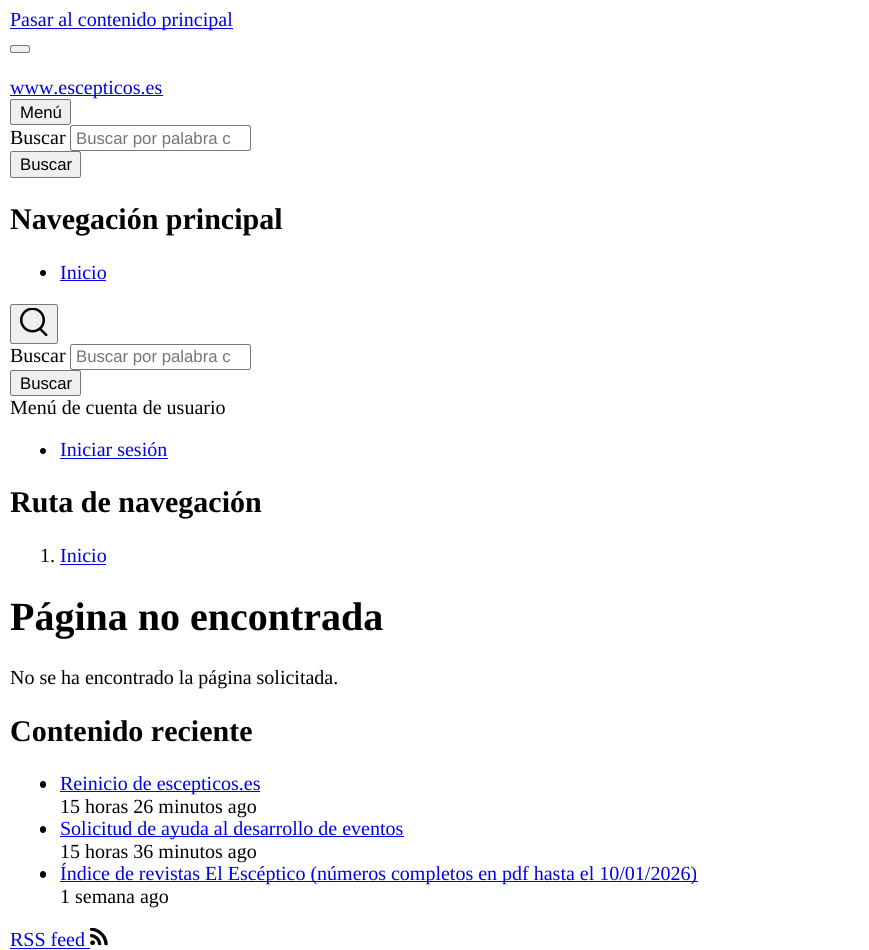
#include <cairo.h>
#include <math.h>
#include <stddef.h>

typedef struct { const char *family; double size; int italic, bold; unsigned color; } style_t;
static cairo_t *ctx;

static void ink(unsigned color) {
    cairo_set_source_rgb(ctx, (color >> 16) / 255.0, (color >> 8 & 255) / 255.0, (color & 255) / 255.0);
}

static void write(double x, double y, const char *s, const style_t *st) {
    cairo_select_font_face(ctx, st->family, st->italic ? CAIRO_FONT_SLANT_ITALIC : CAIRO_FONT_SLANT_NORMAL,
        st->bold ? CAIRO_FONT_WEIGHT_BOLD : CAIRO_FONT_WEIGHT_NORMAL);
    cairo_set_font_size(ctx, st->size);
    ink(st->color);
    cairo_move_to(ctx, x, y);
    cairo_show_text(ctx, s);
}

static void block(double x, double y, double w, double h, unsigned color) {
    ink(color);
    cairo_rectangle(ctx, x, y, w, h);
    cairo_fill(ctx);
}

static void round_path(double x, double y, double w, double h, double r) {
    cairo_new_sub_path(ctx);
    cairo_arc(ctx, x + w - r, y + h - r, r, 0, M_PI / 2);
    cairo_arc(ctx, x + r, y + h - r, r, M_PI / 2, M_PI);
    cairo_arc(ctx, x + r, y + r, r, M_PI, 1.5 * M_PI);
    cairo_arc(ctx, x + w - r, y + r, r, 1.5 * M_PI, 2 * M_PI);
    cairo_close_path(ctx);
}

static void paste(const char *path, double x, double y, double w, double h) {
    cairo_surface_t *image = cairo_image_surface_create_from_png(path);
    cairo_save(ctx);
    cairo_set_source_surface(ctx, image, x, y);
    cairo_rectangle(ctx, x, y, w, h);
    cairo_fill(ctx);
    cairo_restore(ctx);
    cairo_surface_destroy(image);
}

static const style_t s1 = {"Liberation Serif", 20, 0, 0, 0x0000ee};
static const style_t s2 = {"Liberation Sans", 16.75, 0, 0, 0x000000};
static const style_t s3 = {"Liberation Serif", 20, 0, 0, 0x000000};
static const style_t s4 = {"Liberation Sans", 16.75, 0, 0, 0x757575};
static const style_t s5 = {"Liberation Serif", 30, 0, 1, 0x000000};
static const style_t s6 = {"Liberation Serif", 40, 0, 1, 0x000000};

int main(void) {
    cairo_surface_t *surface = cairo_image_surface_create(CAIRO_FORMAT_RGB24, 869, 950);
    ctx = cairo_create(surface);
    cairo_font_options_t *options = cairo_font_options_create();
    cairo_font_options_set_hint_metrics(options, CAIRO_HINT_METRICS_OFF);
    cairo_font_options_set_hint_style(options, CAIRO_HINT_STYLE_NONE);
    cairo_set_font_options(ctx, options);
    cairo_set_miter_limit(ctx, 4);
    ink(0xffffff);
    cairo_paint(ctx);
    block(10, 28, 223, 1, 0x0000ee);
    write(10, 26, "Pasar al contenido principal", &s1);
    ink(0xefefef);
    round_path(10.5, 45.5, 19, 7, 2);
    cairo_fill_preserve(ctx);
    ink(0x767676);
    cairo_set_line_width(ctx, 1);
    cairo_stroke(ctx);
    block(10, 95, 153, 1, 0x0000ee);
    write(10, 94, "www.escepticos.es", &s1);
    ink(0xefefef);
    round_path(10.5, 99.5, 60, 25, 2);
    cairo_fill_preserve(ctx);
    ink(0x767676);
    cairo_stroke(ctx);
    write(20, 118, "Menú", &s2);
    write(10, 144, "Buscar", &s3);
    round_path(70.5, 125.5, 180, 25, 2);
    ink(0x767676);
    cairo_stroke(ctx);
    write(76, 144, "Buscar por palabra c", &s4);
    ink(0xefefef);
    round_path(10.5, 151.5, 70, 26, 2);
    cairo_fill_preserve(ctx);
    ink(0x767676);
    cairo_stroke(ctx);
    write(20, 170, "Buscar", &s2);
    write(10, 229, "Navegación principal", &s5);
    cairo_new_path(ctx);
    cairo_arc(ctx, 43, 273, 3, 0, 2 * M_PI);
    cairo_fill(ctx);
    write(60, 279, "Inicio", &s1);
    block(60, 280, 46, 1, 0x0000ee);
    ink(0xefefef);
    round_path(10.5, 304.5, 47, 39, 2);
    cairo_fill_preserve(ctx);
    ink(0x767676);
    cairo_stroke(ctx);
    paste("pic1.png", 20, 308, 28, 28);
    write(10, 362, "Buscar", &s3);
    round_path(70.5, 344.5, 180, 25, 2);
    ink(0x767676);
    cairo_stroke(ctx);
    write(76, 362, "Buscar por palabra c", &s4);
    ink(0xefefef);
    round_path(10.5, 370.5, 70, 25, 2);
    cairo_fill_preserve(ctx);
    ink(0x767676);
    cairo_stroke(ctx);
    write(20, 389, "Buscar", &s2);
    write(10, 414, "Menú de cuenta de usuario", &s3);
    cairo_new_path(ctx);
    cairo_arc(ctx, 43, 451, 3, 0, 2 * M_PI);
    cairo_fill(ctx);
    write(60, 456, "Iniciar sesión", &s1);
    block(60, 458, 108, 1, 0x0000ee);
    write(10, 512, "Ruta de navegación", &s5);
    write(40, 562, "1.", &s3);
    write(60, 562, "Inicio", &s1);
    block(60, 564, 46, 1, 0x0000ee);
    write(10, 630, "Página no encontrada", &s6);
    write(10, 684, "No se ha encontrado la página solicitada.", &s3);
    write(10, 741, "Contenido reciente", &s5);
    round_path(40, 781, 6, 7, 3);
    cairo_fill(ctx);
    block(60, 791, 200, 1, 0x0000ee);
    write(60, 790, "Reinicio de escepticos.es", &s1);
    write(60, 813, "15 horas 26 minutos ago", &s3);
    round_path(40, 826, 6, 7, 3);
    cairo_fill(ctx);
    block(60, 836, 344, 1, 0x0000ee);
    write(60, 835, "Solicitud de ayuda al desarrollo de eventos", &s1);
    write(60, 858, "15 horas 36 minutos ago", &s3);
    round_path(40, 871, 6, 7, 3);
    cairo_fill(ctx);
    block(60, 881, 638, 1, 0x0000ee);
    write(60, 880, "Índice de revistas El Escéptico (números completos en pdf hasta el 10/01/2026)", &s1);
    write(60, 903, "1 semana ago", &s3);
    write(10, 946, "RSS feed", &s1);
    block(10, 948, 80, 1, 0x0000ee);
    paste("pic2.png", 90, 928, 18, 18);
    cairo_surface_write_to_png(surface, "screenshot.png");
    cairo_font_options_destroy(options);
    cairo_destroy(ctx);
    cairo_surface_destroy(surface);
    return 0;
}
